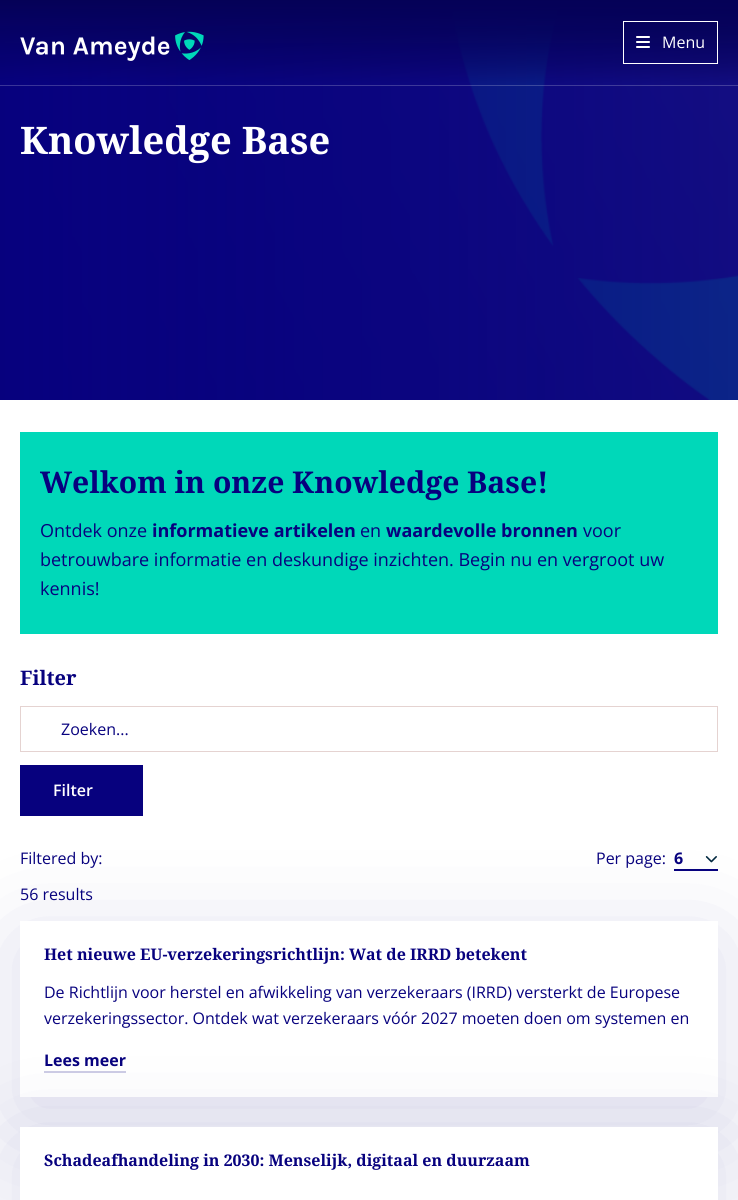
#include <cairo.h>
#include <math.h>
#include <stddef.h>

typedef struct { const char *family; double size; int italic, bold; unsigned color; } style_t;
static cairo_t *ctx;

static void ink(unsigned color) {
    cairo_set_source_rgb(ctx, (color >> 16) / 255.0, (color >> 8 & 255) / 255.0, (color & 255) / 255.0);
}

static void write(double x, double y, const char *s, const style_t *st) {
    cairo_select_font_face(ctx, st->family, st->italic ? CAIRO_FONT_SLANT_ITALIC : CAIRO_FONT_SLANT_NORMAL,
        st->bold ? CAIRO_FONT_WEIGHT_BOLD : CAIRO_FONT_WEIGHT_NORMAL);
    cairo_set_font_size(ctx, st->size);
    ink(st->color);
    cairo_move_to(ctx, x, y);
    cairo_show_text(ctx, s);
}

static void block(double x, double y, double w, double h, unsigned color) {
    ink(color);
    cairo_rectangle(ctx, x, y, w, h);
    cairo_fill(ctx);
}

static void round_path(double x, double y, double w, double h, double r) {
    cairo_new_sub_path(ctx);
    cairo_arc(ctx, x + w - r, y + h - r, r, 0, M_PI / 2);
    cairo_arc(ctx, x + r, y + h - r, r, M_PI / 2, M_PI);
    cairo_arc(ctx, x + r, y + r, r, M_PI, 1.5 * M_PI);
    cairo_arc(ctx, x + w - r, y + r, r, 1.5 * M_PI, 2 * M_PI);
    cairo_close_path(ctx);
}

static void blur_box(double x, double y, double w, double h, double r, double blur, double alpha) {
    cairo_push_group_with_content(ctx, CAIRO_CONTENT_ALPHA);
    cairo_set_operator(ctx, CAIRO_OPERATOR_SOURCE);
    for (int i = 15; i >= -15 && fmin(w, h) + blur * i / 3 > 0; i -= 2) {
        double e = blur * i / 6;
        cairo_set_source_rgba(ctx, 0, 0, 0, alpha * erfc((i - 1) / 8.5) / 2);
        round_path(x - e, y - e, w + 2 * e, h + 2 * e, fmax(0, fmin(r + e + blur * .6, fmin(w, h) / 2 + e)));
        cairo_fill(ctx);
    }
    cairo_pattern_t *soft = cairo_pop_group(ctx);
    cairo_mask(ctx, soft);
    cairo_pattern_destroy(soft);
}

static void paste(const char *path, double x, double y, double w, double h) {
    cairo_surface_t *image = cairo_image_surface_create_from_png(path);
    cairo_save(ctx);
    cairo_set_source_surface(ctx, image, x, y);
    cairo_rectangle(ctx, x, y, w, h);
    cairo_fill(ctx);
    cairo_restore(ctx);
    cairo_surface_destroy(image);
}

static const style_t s1 = {"Open Sans", 16, 0, 0, 0xffffff};
static const style_t s2 = {"Noto Serif", 38, 0, 1, 0xffffff};
static const style_t s3 = {"Noto Serif", 30, 0, 1, 0x07017e};
static const style_t s4 = {"Open Sans", 18, 0, 0, 0x07017e};
static const style_t s5 = {"Open Sans", 18, 0, 1, 0x07017e};
static const style_t s6 = {"Noto Serif", 20, 0, 1, 0x07017e};
static const style_t s7 = {"Open Sans", 16, 0, 0, 0x07017e};
static const style_t s8 = {"Open Sans SemiBold", 16, 0, 0, 0xffffff};
static const style_t s9 = {"Open Sans", 16, 0, 1, 0x07017e};
static const style_t s10 = {"Noto Serif", 16, 0, 1, 0x07017e};

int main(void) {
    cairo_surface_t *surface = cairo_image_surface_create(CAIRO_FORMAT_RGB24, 738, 1200);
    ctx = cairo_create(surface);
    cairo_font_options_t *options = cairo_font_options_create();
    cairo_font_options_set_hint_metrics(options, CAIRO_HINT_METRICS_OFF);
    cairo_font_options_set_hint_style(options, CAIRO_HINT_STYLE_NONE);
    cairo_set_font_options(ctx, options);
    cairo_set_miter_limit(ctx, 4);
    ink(0xffffff);
    cairo_paint(ctx);
    paste("pic3.png", 0, 0, 738, 400);
    cairo_set_source_rgba(ctx, 1, 1, 1, 0.2);
    cairo_rectangle(ctx, 0, 85, 738, 1);
    cairo_fill(ctx);
    paste("pic1.png", 20, 31, 184, 30);
    cairo_rectangle(ctx, 623.5, 21.5, 94, 42);
    ink(0xffffff);
    cairo_set_line_width(ctx, 1);
    cairo_stroke(ctx);
    paste("pic2.png", 636, 36, 14, 12);
    write(662, 48, "Menu", &s1);
    write(20, 154, "Knowledge Base", &s2);
    block(20, 432, 698, 202, 0x00d8b9);
    write(40, 493, "Welkom in onze Knowledge Base!", &s3);
    write(40, 537, "Ontdek onze", &s4);
    write(152, 537, "informatieve artikelen", &s5);
    write(360, 537, "en", &s4);
    write(386, 537, "waardevolle bronnen", &s5);
    write(583, 537, "voor", &s4);
    write(40, 566, "betrouwbare informatie en deskundige inzichten. Begin nu en vergroot uw", &s4);
    write(40, 595, "kennis!", &s4);
    write(20, 685, "Filter", &s6);
    cairo_rectangle(ctx, 20.5, 706.5, 697, 45);
    ink(0xe5d3d1);
    cairo_stroke(ctx);
    write(61, 735, "Zoeken...", &s7);
    block(20, 765, 123, 51, 0x07017e);
    write(53, 796, "Filter", &s8);
    write(20, 864, "Filtered by:", &s7);
    write(20, 900, "56 results", &s7);
    write(596, 864, "Per page:", &s7);
    paste("pic4.png", 705, 856, 12, 7);
    block(674, 869, 44, 2, 0x07017e);
    write(674, 864, "6", &s9);
    cairo_save(ctx);
    cairo_set_fill_rule(ctx, CAIRO_FILL_RULE_EVEN_ODD);
    cairo_new_path(ctx);
    cairo_move_to(ctx, 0, 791);
    cairo_line_to(ctx, 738, 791);
    cairo_line_to(ctx, 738, 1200);
    cairo_line_to(ctx, 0, 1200);
    cairo_close_path(ctx);
    cairo_move_to(ctx, 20, 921);
    cairo_line_to(ctx, 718, 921);
    cairo_line_to(ctx, 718, 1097);
    cairo_line_to(ctx, 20, 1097);
    cairo_close_path(ctx);
    cairo_clip(ctx);
    ink(0x07017e);
    blur_box(20, 941, 698, 176, 0, 49.5, 0.14);
    cairo_restore(ctx);
    write(44, 960, "Het nieuwe EU-verzekeringsrichtlijn: Wat de IRRD betekent", &s10);
    write(44, 998, "De Richtlijn voor herstel en afwikkeling van verzekeraars (IRRD) versterkt de Europese", &s7);
    write(44, 1024, "verzekeringssector. Ontdek wat verzekeraars vóór 2027 moeten doen om systemen en", &s7);
    write(44, 1066, "Lees meer", &s9);
    block(44, 1071, 82, 2, 0xcdcce5);
    ink(0x07017e);
    blur_box(20, 1147, 698, 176, 0, 49.5, 0.14);
    block(20, 1127, 698, 73, 0xffffff);
    write(44, 1166, "Schadeafhandeling in 2030: Menselijk, digitaal en duurzaam", &s10);
    cairo_surface_write_to_png(surface, "screenshot.png");
    cairo_font_options_destroy(options);
    cairo_destroy(ctx);
    cairo_surface_destroy(surface);
    return 0;
}
